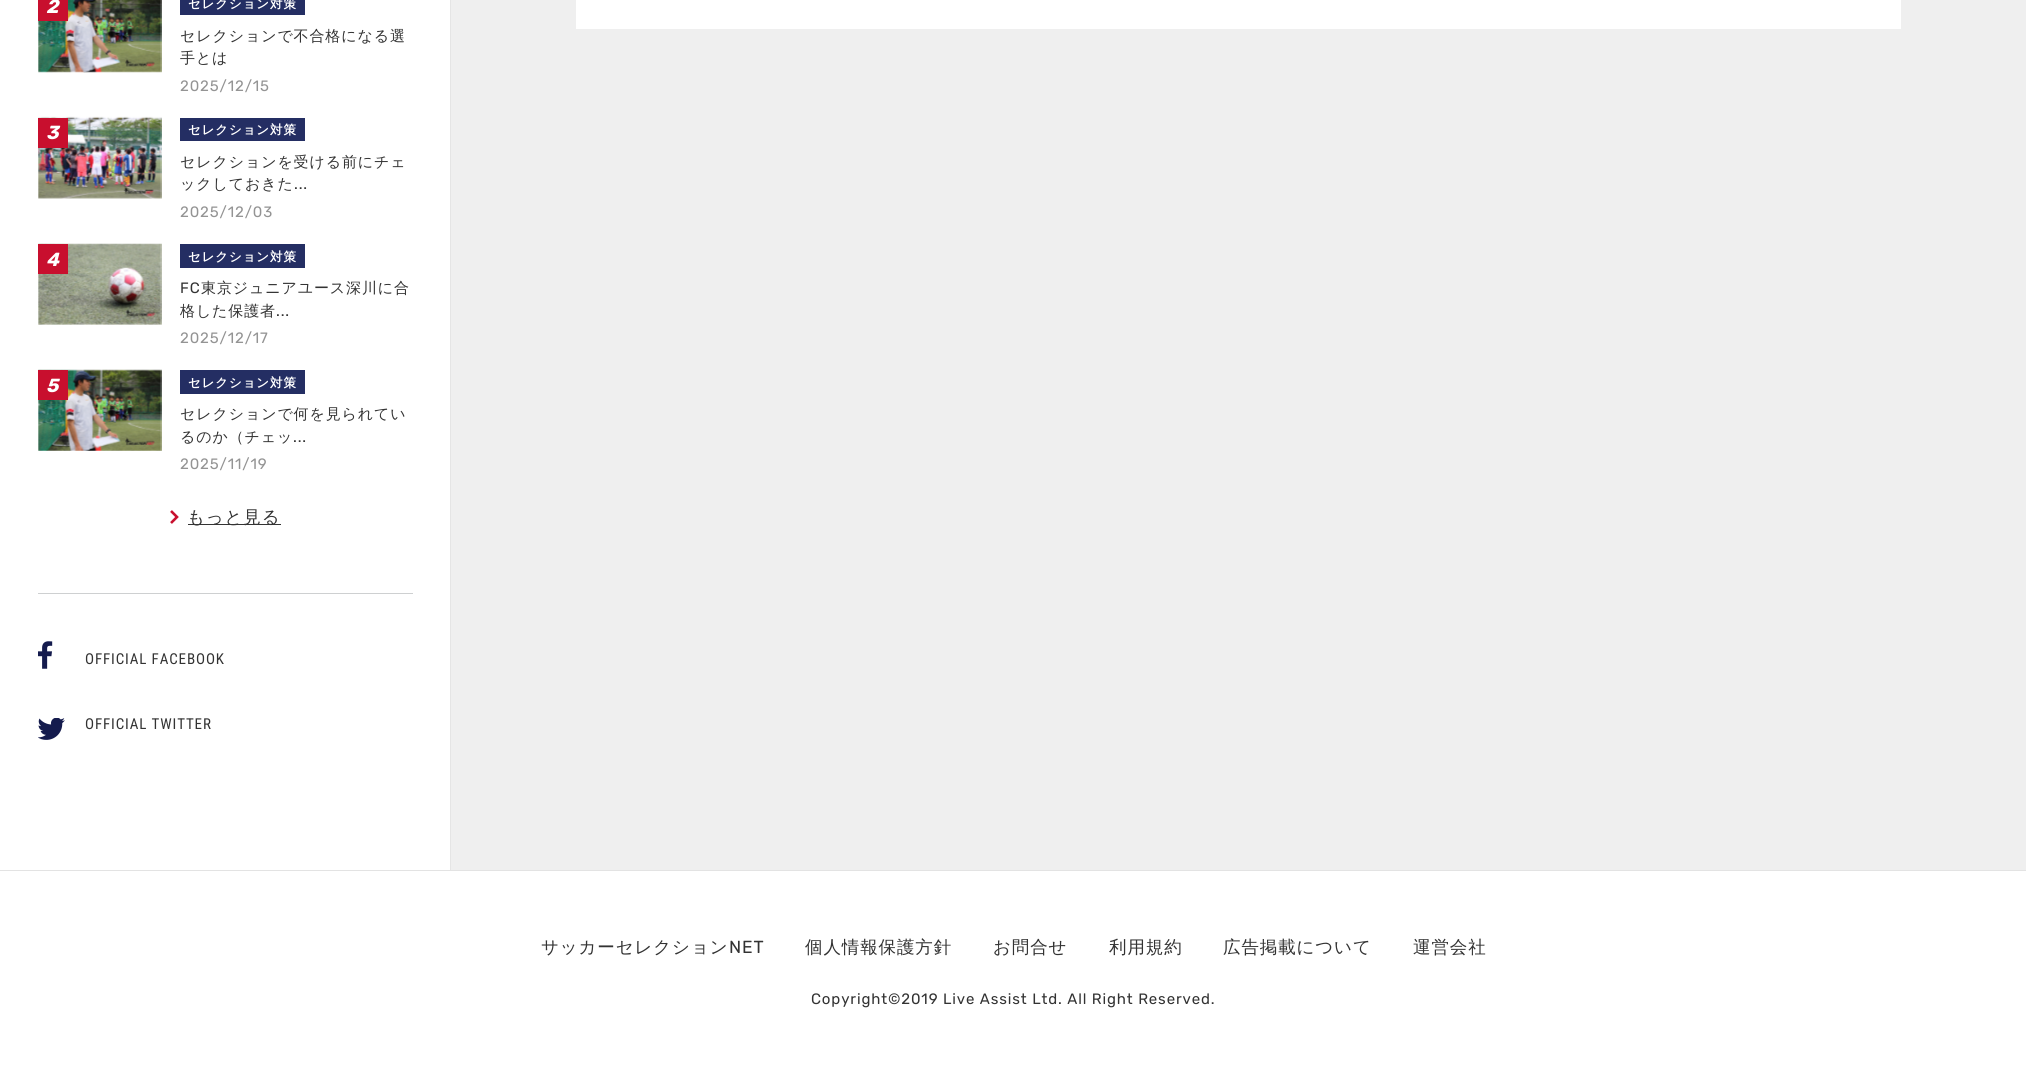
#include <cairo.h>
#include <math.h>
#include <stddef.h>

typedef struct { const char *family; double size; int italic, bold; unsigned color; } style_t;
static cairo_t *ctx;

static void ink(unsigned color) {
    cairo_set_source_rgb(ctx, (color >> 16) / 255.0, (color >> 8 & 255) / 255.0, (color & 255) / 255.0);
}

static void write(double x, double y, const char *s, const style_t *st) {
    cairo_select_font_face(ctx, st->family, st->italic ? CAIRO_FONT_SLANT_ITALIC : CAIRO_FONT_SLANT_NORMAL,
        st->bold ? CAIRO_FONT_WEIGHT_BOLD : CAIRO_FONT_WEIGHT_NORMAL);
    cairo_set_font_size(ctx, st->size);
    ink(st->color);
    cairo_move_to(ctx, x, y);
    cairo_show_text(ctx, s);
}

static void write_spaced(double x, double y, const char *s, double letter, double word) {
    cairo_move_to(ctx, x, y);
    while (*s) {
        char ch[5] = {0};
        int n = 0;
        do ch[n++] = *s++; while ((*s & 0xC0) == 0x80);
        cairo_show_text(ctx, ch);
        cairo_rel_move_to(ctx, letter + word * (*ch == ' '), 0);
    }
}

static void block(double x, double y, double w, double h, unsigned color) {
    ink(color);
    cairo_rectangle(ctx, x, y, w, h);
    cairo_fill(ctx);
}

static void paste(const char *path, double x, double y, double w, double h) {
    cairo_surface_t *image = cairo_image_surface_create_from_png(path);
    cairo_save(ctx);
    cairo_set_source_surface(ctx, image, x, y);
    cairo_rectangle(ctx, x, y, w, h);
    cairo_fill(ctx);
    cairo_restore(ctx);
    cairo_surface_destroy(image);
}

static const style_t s1 = {"Rubik", 19, 1, 1, 0xffffff};

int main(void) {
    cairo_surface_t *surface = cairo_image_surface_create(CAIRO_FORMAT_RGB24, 2026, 1069);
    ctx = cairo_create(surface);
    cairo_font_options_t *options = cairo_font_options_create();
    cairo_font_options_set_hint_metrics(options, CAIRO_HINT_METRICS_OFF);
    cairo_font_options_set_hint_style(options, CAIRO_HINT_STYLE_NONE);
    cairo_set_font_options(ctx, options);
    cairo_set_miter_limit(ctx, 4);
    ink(0xffffff);
    cairo_paint(ctx);
    block(450, 0, 1, 870, 0xe5e5e5);
    paste("pic1.png", 38, 0, 124, 73);
    block(38, 0, 30, 21, 0xc80f2e);
    write(46, 13, "2", &s1);
    block(180, 0, 125, 15, 0x242e63);
    cairo_select_font_face(ctx, "WenQuanYi Zen Hei", CAIRO_FONT_SLANT_NORMAL, CAIRO_FONT_WEIGHT_BOLD);
    cairo_set_font_size(ctx, 12.5);
    ink(0xffffff);
    write_spaced(188, 8, "セレクション対策", 0.88, 0);
    cairo_select_font_face(ctx, "WenQuanYi Zen Hei Medium", CAIRO_FONT_SLANT_NORMAL, CAIRO_FONT_WEIGHT_NORMAL);
    cairo_set_font_size(ctx, 15);
    ink(0x333333);
    write_spaced(180, 41, "セレクションで不合格になる選", 0.88, 0);
    write_spaced(180, 63, "手とは", 0.88, 0);
    cairo_select_font_face(ctx, "Rubik", CAIRO_FONT_SLANT_NORMAL, CAIRO_FONT_WEIGHT_NORMAL);
    ink(0x949494);
    write_spaced(180, 91, "2025/12/15", 0.88, 0);
    paste("pic2.png", 38, 116, 124, 83);
    block(180, 118, 125, 23, 0x242e63);
    cairo_select_font_face(ctx, "WenQuanYi Zen Hei", CAIRO_FONT_SLANT_NORMAL, CAIRO_FONT_WEIGHT_BOLD);
    cairo_set_font_size(ctx, 12.5);
    ink(0xffffff);
    write_spaced(188, 134, "セレクション対策", 0.88, 0);
    cairo_select_font_face(ctx, "WenQuanYi Zen Hei Medium", CAIRO_FONT_SLANT_NORMAL, CAIRO_FONT_WEIGHT_NORMAL);
    cairo_set_font_size(ctx, 15);
    ink(0x333333);
    write_spaced(180, 167, "セレクションを受ける前にチェ", 0.88, 0);
    write_spaced(180, 189, "ックしておきた", 0.88, 0);
    cairo_select_font_face(ctx, "Rubik", CAIRO_FONT_SLANT_NORMAL, CAIRO_FONT_WEIGHT_NORMAL);
    write_spaced(294, 189, "...", 0.88, 0);
    ink(0x949494);
    write_spaced(180, 217, "2025/12/03", 0.88, 0);
    block(38, 118, 30, 30, 0xc80f2e);
    write(46, 139, "3", &s1);
    paste("pic3.png", 38, 243, 124, 82);
    block(180, 244, 125, 24, 0x242e63);
    cairo_select_font_face(ctx, "WenQuanYi Zen Hei", CAIRO_FONT_SLANT_NORMAL, CAIRO_FONT_WEIGHT_BOLD);
    cairo_set_font_size(ctx, 12.5);
    ink(0xffffff);
    write_spaced(188, 261, "セレクション対策", 0.88, 0);
    cairo_select_font_face(ctx, "Rubik", CAIRO_FONT_SLANT_NORMAL, CAIRO_FONT_WEIGHT_NORMAL);
    cairo_set_font_size(ctx, 15);
    ink(0x333333);
    write_spaced(180, 293, "FC", 0.88, 0);
    cairo_select_font_face(ctx, "WenQuanYi Zen Hei Medium", CAIRO_FONT_SLANT_NORMAL, CAIRO_FONT_WEIGHT_NORMAL);
    write_spaced(201, 293, "東京ジュニアユース深川に合", 0.88, 0);
    write_spaced(180, 316, "格した保護者", 0.88, 0);
    cairo_select_font_face(ctx, "Rubik", CAIRO_FONT_SLANT_NORMAL, CAIRO_FONT_WEIGHT_NORMAL);
    write_spaced(276, 316, "...", 0.88, 0);
    ink(0x949494);
    write_spaced(180, 343, "2025/12/17", 0.88, 0);
    block(38, 244, 30, 30, 0xc80f2e);
    write(46, 266, "4", &s1);
    paste("pic4.png", 38, 369, 124, 82);
    block(180, 370, 125, 24, 0x242e63);
    cairo_select_font_face(ctx, "WenQuanYi Zen Hei", CAIRO_FONT_SLANT_NORMAL, CAIRO_FONT_WEIGHT_BOLD);
    cairo_set_font_size(ctx, 12.5);
    ink(0xffffff);
    write_spaced(188, 387, "セレクション対策", 0.88, 0);
    cairo_select_font_face(ctx, "WenQuanYi Zen Hei Medium", CAIRO_FONT_SLANT_NORMAL, CAIRO_FONT_WEIGHT_NORMAL);
    cairo_set_font_size(ctx, 15);
    ink(0x333333);
    write_spaced(180, 419, "セレクションで何を見られてい", 0.88, 0);
    write_spaced(180, 442, "るのか（チェッ", 0.88, 0);
    cairo_select_font_face(ctx, "Rubik", CAIRO_FONT_SLANT_NORMAL, CAIRO_FONT_WEIGHT_NORMAL);
    write_spaced(293, 442, "...", 0.88, 0);
    ink(0x949494);
    write_spaced(180, 469, "2025/11/19", 0.88, 0);
    block(38, 370, 30, 30, 0xc80f2e);
    write(46, 392, "5", &s1);
    block(188, 524, 93, 1, 0x333333);
    cairo_select_font_face(ctx, "WenQuanYi Zen Hei Medium", CAIRO_FONT_SLANT_NORMAL, CAIRO_FONT_WEIGHT_NORMAL);
    cairo_set_font_size(ctx, 17.5);
    write_spaced(187, 523, "もっと見る", 0.88, 0);
    cairo_new_path(ctx);
    cairo_move_to(ctx, 171, 511);
    cairo_line_to(ctx, 177, 517);
    cairo_line_to(ctx, 171, 523);
    ink(0xc80f2e);
    cairo_set_line_width(ctx, 2.6);
    cairo_stroke(ctx);
    block(38, 593, 375, 1, 0xced0d1);
    paste("pic5.png", 38, 641, 15, 28);
    cairo_select_font_face(ctx, "Roboto Condensed", CAIRO_FONT_SLANT_NORMAL, CAIRO_FONT_WEIGHT_NORMAL);
    cairo_set_font_size(ctx, 15);
    ink(0x333333);
    write_spaced(85, 664, "OFFICIAL FACEBOOK", 0.88, 0);
    paste("pic6.png", 38, 718, 27, 22);
    write_spaced(85, 729, "OFFICIAL TWITTER", 0.88, 0);
    block(451, 0, 1575, 870, 0xefefef);
    block(576, 0, 1325, 29, 0xffffff);
    block(0, 870, 2026, 1, 0xe3e3e3);
    cairo_select_font_face(ctx, "WenQuanYi Zen Hei Medium", CAIRO_FONT_SLANT_NORMAL, CAIRO_FONT_WEIGHT_NORMAL);
    cairo_set_font_size(ctx, 17.5);
    ink(0x333333);
    write_spaced(541, 953, "サッカーセレクション", 0.88, 0);
    cairo_select_font_face(ctx, "Rubik", CAIRO_FONT_SLANT_NORMAL, CAIRO_FONT_WEIGHT_NORMAL);
    write_spaced(729, 953, "NET", 0.88, 0);
    cairo_select_font_face(ctx, "WenQuanYi Zen Hei Medium", CAIRO_FONT_SLANT_NORMAL, CAIRO_FONT_WEIGHT_NORMAL);
    write_spaced(805, 953, "個人情報保護方針", 0.88, 0);
    write_spaced(993, 953, "お問合せ", 0.88, 0);
    write_spaced(1109, 953, "利用規約", 0.88, 0);
    write_spaced(1223, 953, "広告掲載について", 0.88, 0);
    write_spaced(1413, 953, "運営会社", 0.88, 0);
    cairo_select_font_face(ctx, "Rubik", CAIRO_FONT_SLANT_NORMAL, CAIRO_FONT_WEIGHT_NORMAL);
    cairo_set_font_size(ctx, 15);
    write_spaced(811, 1004, "Copyright©2019 Live Assist Ltd. All Right Reserved.", 0.88, 0);
    cairo_surface_write_to_png(surface, "screenshot.png");
    cairo_font_options_destroy(options);
    cairo_destroy(ctx);
    cairo_surface_destroy(surface);
    return 0;
}
